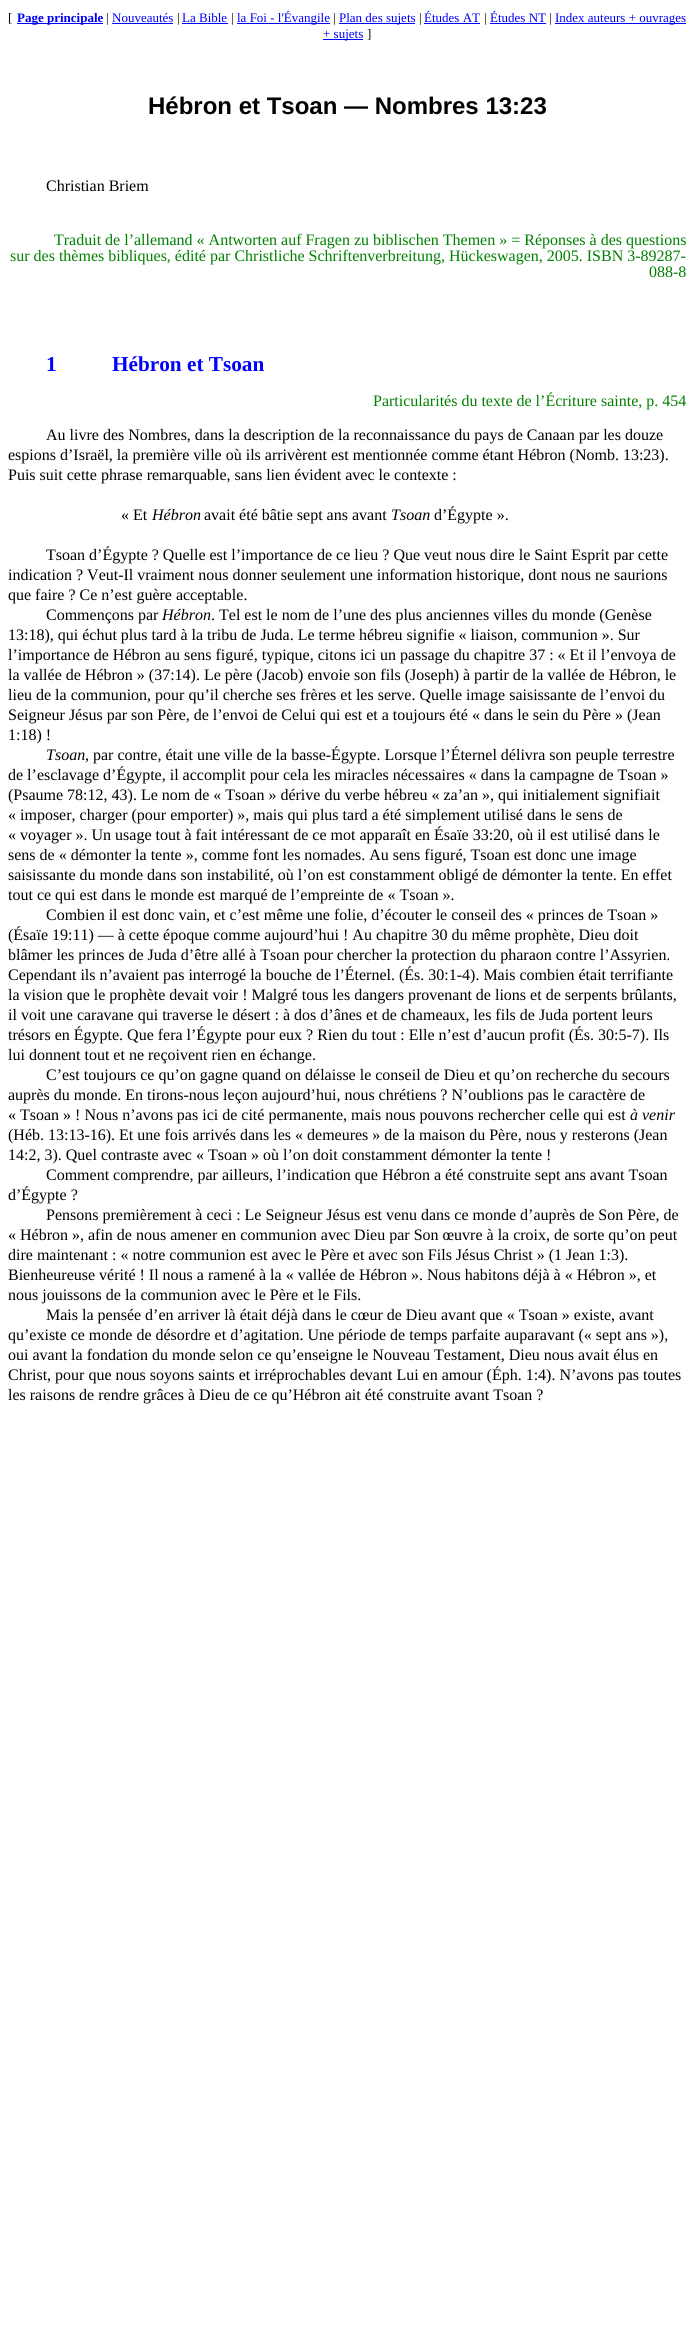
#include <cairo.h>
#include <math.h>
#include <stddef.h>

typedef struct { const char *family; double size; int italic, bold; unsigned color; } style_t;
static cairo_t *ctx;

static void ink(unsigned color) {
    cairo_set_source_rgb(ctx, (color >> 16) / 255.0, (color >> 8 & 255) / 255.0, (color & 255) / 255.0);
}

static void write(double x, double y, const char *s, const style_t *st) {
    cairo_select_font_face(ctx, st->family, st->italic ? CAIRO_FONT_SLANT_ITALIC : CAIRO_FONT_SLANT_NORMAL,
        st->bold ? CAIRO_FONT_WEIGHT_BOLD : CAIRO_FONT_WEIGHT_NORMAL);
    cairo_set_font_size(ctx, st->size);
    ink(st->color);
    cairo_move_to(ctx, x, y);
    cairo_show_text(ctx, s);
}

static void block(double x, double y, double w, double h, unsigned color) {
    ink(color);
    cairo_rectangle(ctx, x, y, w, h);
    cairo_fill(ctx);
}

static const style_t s1 = {"Liberation Serif", 13, 0, 0, 0x000000};
static const style_t s2 = {"Liberation Serif", 13, 0, 1, 0x0000ff};
static const style_t s3 = {"Liberation Serif", 13, 0, 0, 0x0000ff};
static const style_t s4 = {"Liberation Sans", 24, 0, 1, 0x000000};
static const style_t s5 = {"Liberation Serif", 16, 0, 0, 0x000000};
static const style_t s6 = {"Liberation Serif", 16, 0, 0, 0x008000};
static const style_t s7 = {"Liberation Serif", 21.25, 0, 1, 0x0000ff};
static const style_t s8 = {"Liberation Serif", 16, 1, 0, 0x000000};

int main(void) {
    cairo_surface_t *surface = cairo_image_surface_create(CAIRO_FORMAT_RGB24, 694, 2340);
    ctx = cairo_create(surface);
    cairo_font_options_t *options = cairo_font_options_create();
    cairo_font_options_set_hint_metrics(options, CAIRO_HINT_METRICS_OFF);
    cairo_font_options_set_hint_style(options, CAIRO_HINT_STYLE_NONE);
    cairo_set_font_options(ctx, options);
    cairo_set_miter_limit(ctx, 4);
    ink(0xffffff);
    cairo_paint(ctx);
    write(8, 22, "[", &s1);
    block(17, 23, 86, 1, 0x0000ff);
    write(17, 22, "Page principale", &s2);
    write(106, 22, "|", &s1);
    write(112, 22, "Nouveautés", &s3);
    block(112, 23, 61, 1, 0x0000ff);
    write(177, 22, "|", &s1);
    write(182, 22, "La Bible", &s3);
    block(182, 23, 46, 1, 0x0000ff);
    write(231, 22, "|", &s1);
    block(237, 23, 93, 1, 0x0000ff);
    write(237, 22, "la Foi - l'Évangile", &s3);
    write(333, 22, "|", &s1);
    block(339, 23, 76, 1, 0x0000ff);
    write(339, 22, "Plan des sujets", &s3);
    write(419, 22, "|", &s1);
    write(424, 22, "Études AT", &s3);
    block(424, 23, 56, 1, 0x0000ff);
    write(484, 22, "|", &s1);
    write(490, 22, "Études NT", &s3);
    block(490, 23, 56, 1, 0x0000ff);
    write(549, 22, "|", &s1);
    block(555, 23, 131, 1, 0x0000ff);
    write(555, 22, "Index auteurs + ouvrages", &s3);
    block(323, 39, 40, 1, 0x0000ff);
    write(323, 38, "+ sujets", &s3);
    write(367, 38, "]", &s1);
    write(148, 114, "Hébron et Tsoan — Nombres 13:23", &s4);
    write(46, 191, "Christian Briem", &s5);
    write(54, 245, "Traduit de l’allemand « Antworten auf Fragen zu biblischen Themen » = Réponses à des questions", &s6);
    write(10, 261, "sur des thèmes bibliques, édité par Christliche Schriftenverbreitung, Hückeswagen, 2005. ISBN 3-89287-", &s6);
    write(649, 277, "088-8", &s6);
    write(46, 371, "1", &s7);
    write(112, 371, "Hébron et Tsoan", &s7);
    write(373, 406, "Particularités du texte de l’Écriture sainte, p. 454", &s6);
    write(46, 440, "Au livre des Nombres, dans la description de la reconnaissance du pays de Canaan par les douze", &s5);
    write(8, 460, "espions d’Israël, la première ville où ils arrivèrent est mentionnée comme étant Hébron (Nomb. 13:23).", &s5);
    write(8, 480, "Puis suit cette phrase remarquable, sans lien évident avec le contexte :", &s5);
    write(121, 520, "« Et", &s5);
    write(152, 520, "Hébron", &s8);
    write(204, 520, "avait été bâtie sept ans avant", &s5);
    write(391, 520, "Tsoan", &s8);
    write(434, 520, "d’Égypte ».", &s5);
    write(46, 560, "Tsoan d’Égypte ? Quelle est l’importance de ce lieu ? Que veut nous dire le Saint Esprit par cette", &s5);
    write(8, 580, "indication ? Veut-Il vraiment nous donner seulement une information historique, dont nous ne saurions", &s5);
    write(8, 600, "que faire ? Ce n’est guère acceptable.", &s5);
    write(46, 620, "Commençons par", &s5);
    write(162, 620, "Hébron", &s8);
    write(211, 620, ". Tel est le nom de l’une des plus anciennes villes du monde (Genèse", &s5);
    write(8, 640, "13:18), qui échut plus tard à la tribu de Juda. Le terme hébreu signifie « liaison, communion ». Sur", &s5);
    write(8, 660, "l’importance de Hébron au sens figuré, typique, citons ici un passage du chapitre 37 : « Et il l’envoya de", &s5);
    write(8, 680, "la vallée de Hébron » (37:14). Le père (Jacob) envoie son fils (Joseph) à partir de la vallée de Hébron, le", &s5);
    write(8, 700, "lieu de la communion, pour qu’il cherche ses frères et les serve. Quelle image saisissante de l’envoi du", &s5);
    write(8, 720, "Seigneur Jésus par son Père, de l’envoi de Celui qui est et a toujours été « dans le sein du Père » (Jean", &s5);
    write(8, 740, "1:18) !", &s5);
    write(46, 760, "Tsoan", &s8);
    write(85, 760, ", par contre, était une ville de la basse-Égypte. Lorsque l’Éternel délivra son peuple terrestre", &s5);
    write(8, 780, "de l’esclavage d’Égypte, il accomplit pour cela les miracles nécessaires « dans la campagne de Tsoan »", &s5);
    write(8, 800, "(Psaume 78:12, 43). Le nom de « Tsoan » dérive du verbe hébreu « za’an », qui initialement signifiait", &s5);
    write(8, 820, "« imposer, charger (pour emporter) », mais qui plus tard a été simplement utilisé dans le sens de", &s5);
    write(8, 840, "« voyager ». Un usage tout à fait intéressant de ce mot apparaît en Ésaïe 33:20, où il est utilisé dans le", &s5);
    write(8, 860, "sens de « démonter la tente », comme font les nomades. Au sens figuré, Tsoan est donc une image", &s5);
    write(8, 880, "saisissante du monde dans son instabilité, où l’on est constamment obligé de démonter la tente. En effet", &s5);
    write(8, 900, "tout ce qui est dans le monde est marqué de l’empreinte de « Tsoan ».", &s5);
    write(46, 920, "Combien il est donc vain, et c’est même une folie, d’écouter le conseil des « princes de Tsoan »", &s5);
    write(8, 940, "(Ésaïe 19:11) — à cette époque comme aujourd’hui ! Au chapitre 30 du même prophète, Dieu doit", &s5);
    write(8, 960, "blâmer les princes de Juda d’être allé à Tsoan pour chercher la protection du pharaon contre l’Assyrien.", &s5);
    write(8, 980, "Cependant ils n’avaient pas interrogé la bouche de l’Éternel. (És. 30:1-4). Mais combien était terrifiante", &s5);
    write(8, 1000, "la vision que le prophète devait voir ! Malgré tous les dangers provenant de lions et de serpents brûlants,", &s5);
    write(8, 1020, "il voit une caravane qui traverse le désert : à dos d’ânes et de chameaux, les fils de Juda portent leurs", &s5);
    write(8, 1040, "trésors en Égypte. Que fera l’Égypte pour eux ? Rien du tout : Elle n’est d’aucun profit (És. 30:5-7). Ils", &s5);
    write(8, 1060, "lui donnent tout et ne reçoivent rien en échange.", &s5);
    write(46, 1080, "C’est toujours ce qu’on gagne quand on délaisse le conseil de Dieu et qu’on recherche du secours", &s5);
    write(8, 1100, "auprès du monde. En tirons-nous leçon aujourd’hui, nous chrétiens ? N’oublions pas le caractère de", &s5);
    write(8, 1120, "« Tsoan » ! Nous n’avons pas ici de cité permanente, mais nous pouvons rechercher celle qui est", &s5);
    write(630, 1120, "à venir", &s8);
    write(8, 1140, "(Héb. 13:13-16). Et une fois arrivés dans les « demeures » de la maison du Père, nous y resterons (Jean", &s5);
    write(8, 1160, "14:2, 3). Quel contraste avec « Tsoan » où l’on doit constamment démonter la tente !", &s5);
    write(46, 1180, "Comment comprendre, par ailleurs, l’indication que Hébron a été construite sept ans avant Tsoan", &s5);
    write(8, 1200, "d’Égypte ?", &s5);
    write(46, 1220, "Pensons premièrement à ceci : Le Seigneur Jésus est venu dans ce monde d’auprès de Son Père, de", &s5);
    write(8, 1240, "« Hébron », afin de nous amener en communion avec Dieu par Son œuvre à la croix, de sorte qu’on peut", &s5);
    write(8, 1260, "dire maintenant : « notre communion est avec le Père et avec son Fils Jésus Christ » (1 Jean 1:3).", &s5);
    write(8, 1280, "Bienheureuse vérité ! Il nous a ramené à la « vallée de Hébron ». Nous habitons déjà à « Hébron », et", &s5);
    write(8, 1300, "nous jouissons de la communion avec le Père et le Fils.", &s5);
    write(46, 1320, "Mais la pensée d’en arriver là était déjà dans le cœur de Dieu avant que « Tsoan » existe, avant", &s5);
    write(8, 1340, "qu’existe ce monde de désordre et d’agitation. Une période de temps parfaite auparavant (« sept ans »),", &s5);
    write(8, 1360, "oui avant la fondation du monde selon ce qu’enseigne le Nouveau Testament, Dieu nous avait élus en", &s5);
    write(8, 1380, "Christ, pour que nous soyons saints et irréprochables devant Lui en amour (Éph. 1:4). N’avons pas toutes", &s5);
    write(8, 1400, "les raisons de rendre grâces à Dieu de ce qu’Hébron ait été construite avant Tsoan ?", &s5);
    cairo_surface_write_to_png(surface, "screenshot.png");
    cairo_font_options_destroy(options);
    cairo_destroy(ctx);
    cairo_surface_destroy(surface);
    return 0;
}
